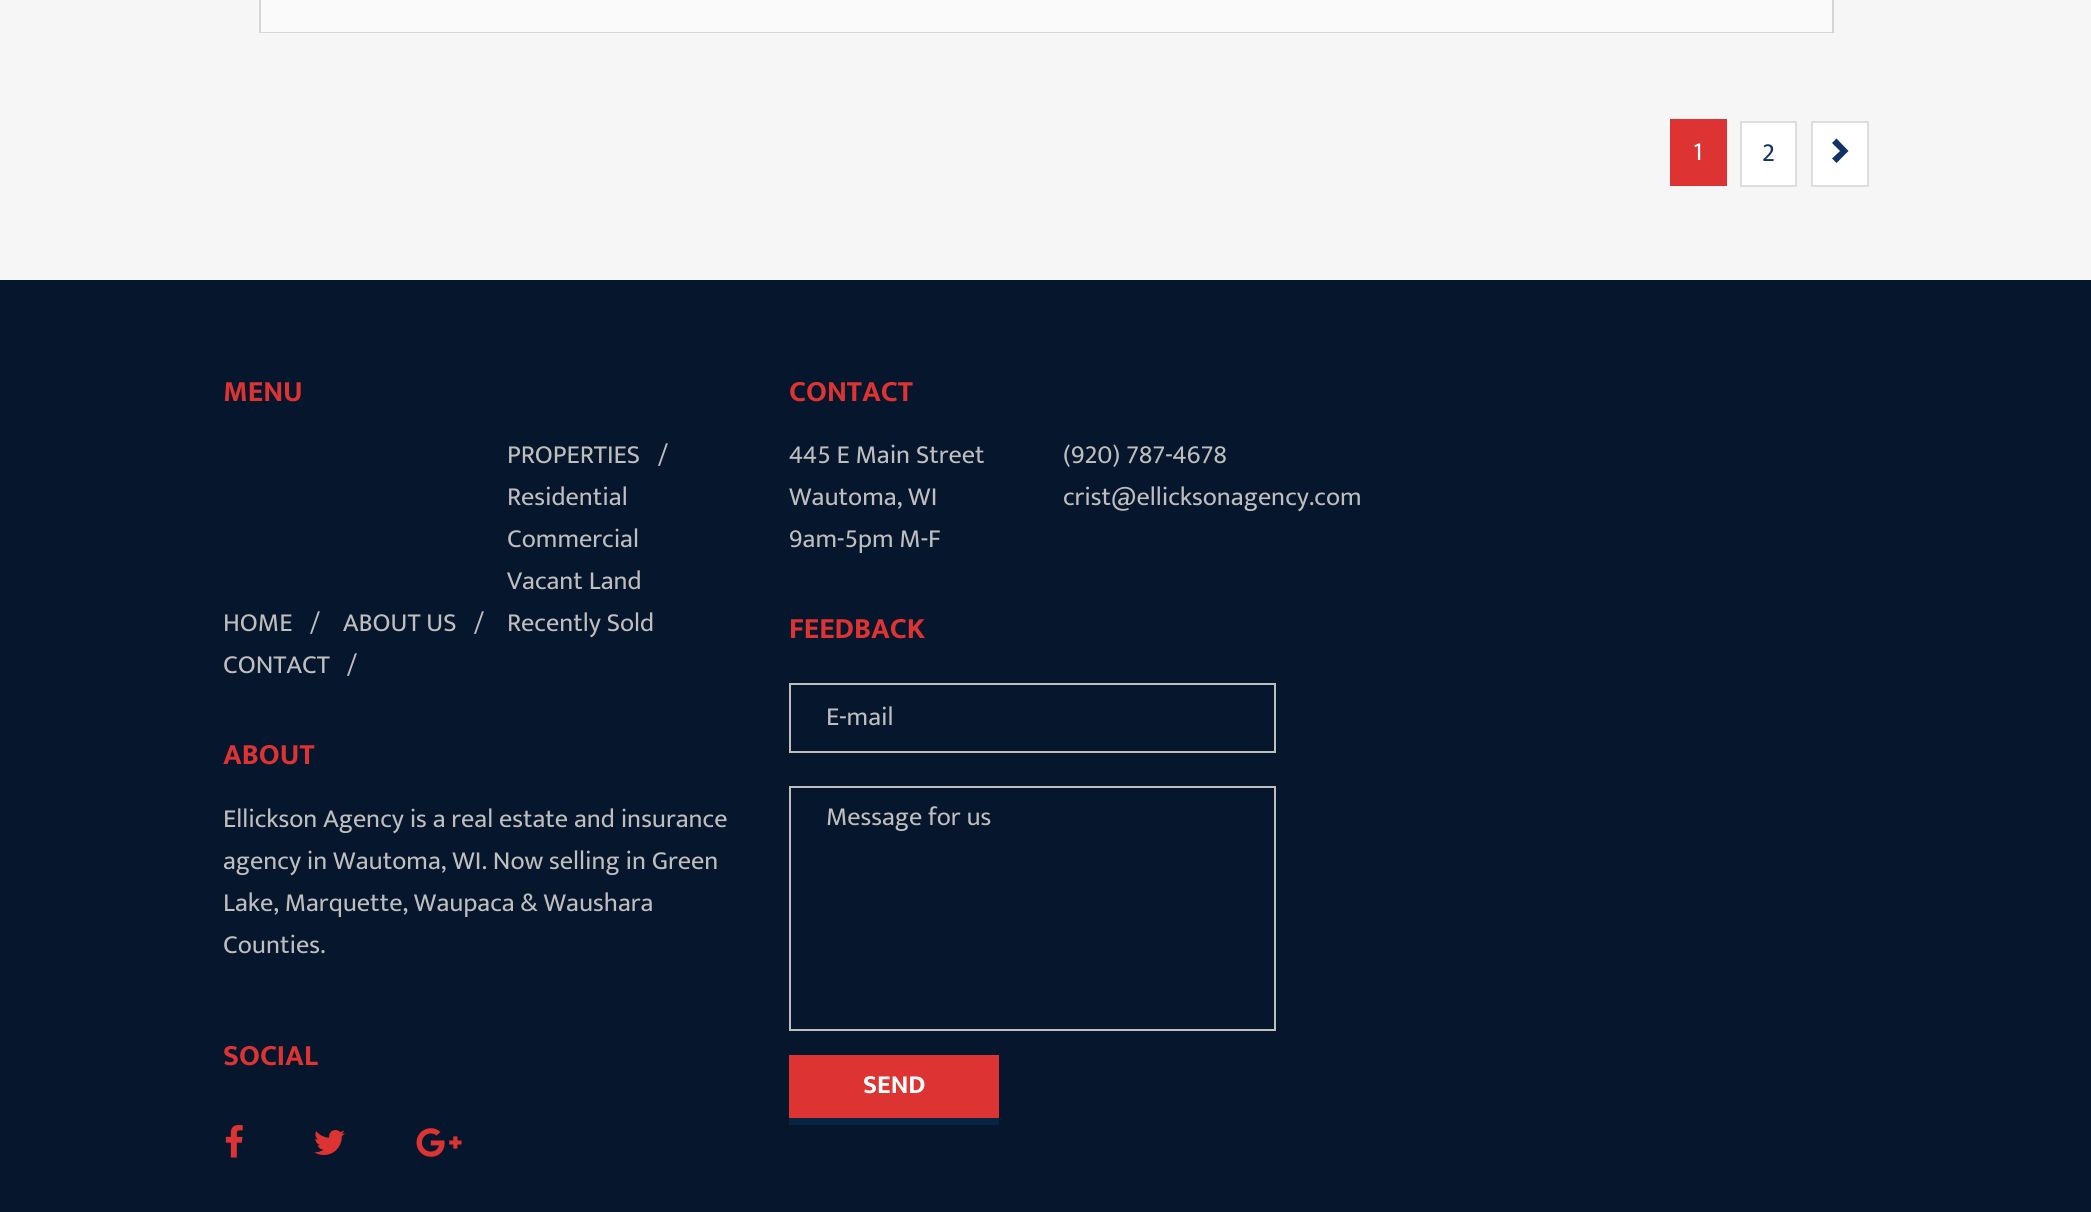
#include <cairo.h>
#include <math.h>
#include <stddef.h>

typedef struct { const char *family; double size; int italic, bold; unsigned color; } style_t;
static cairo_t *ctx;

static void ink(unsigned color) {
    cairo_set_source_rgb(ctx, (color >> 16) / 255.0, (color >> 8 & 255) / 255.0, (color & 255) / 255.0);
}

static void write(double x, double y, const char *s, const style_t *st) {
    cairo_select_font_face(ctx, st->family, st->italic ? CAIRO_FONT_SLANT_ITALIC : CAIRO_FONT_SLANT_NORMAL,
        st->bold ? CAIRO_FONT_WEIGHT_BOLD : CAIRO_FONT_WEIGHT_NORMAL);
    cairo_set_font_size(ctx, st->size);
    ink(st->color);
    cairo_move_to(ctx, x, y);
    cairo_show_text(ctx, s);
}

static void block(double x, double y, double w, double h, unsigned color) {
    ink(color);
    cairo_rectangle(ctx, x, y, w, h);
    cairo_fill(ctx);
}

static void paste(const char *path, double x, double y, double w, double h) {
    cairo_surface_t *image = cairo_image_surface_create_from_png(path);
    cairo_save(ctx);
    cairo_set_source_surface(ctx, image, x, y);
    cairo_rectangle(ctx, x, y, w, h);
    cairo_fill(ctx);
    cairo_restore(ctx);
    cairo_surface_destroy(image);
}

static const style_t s1 = {"Mukta", 26.25, 0, 0, 0xffffff};
static const style_t s2 = {"Mukta", 26.25, 0, 0, 0x123368};
static const style_t s3 = {"Mukta", 29.75, 0, 1, 0xdd3333};
static const style_t s4 = {"Mukta", 26.25, 0, 0, 0xbebebe};
static const style_t s5 = {"Mukta", 26.25, 0, 1, 0xffffff};

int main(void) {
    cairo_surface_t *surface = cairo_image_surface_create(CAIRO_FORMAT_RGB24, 2091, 1212);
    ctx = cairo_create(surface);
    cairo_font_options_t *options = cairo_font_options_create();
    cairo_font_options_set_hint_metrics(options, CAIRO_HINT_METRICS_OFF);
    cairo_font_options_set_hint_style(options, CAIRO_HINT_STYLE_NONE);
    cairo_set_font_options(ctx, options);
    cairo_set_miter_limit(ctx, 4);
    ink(0xf6f6f6);
    cairo_paint(ctx);
    block(261, 0, 1571, 32, 0xfafafa);
    block(1832, 0, 2, 33, 0xd6d6d6);
    block(259, 32, 1575, 1, 0xd6d6d6);
    block(259, 0, 2, 33, 0xd6d6d6);
    block(1670, 119, 57, 67, 0xdd3333);
    write(1693, 160, "1", &s1);
    cairo_rectangle(ctx, 1741, 122, 55, 64);
    cairo_fill_preserve(ctx);
    ink(0xdddddd);
    cairo_stroke(ctx);
    write(1762, 161, "2", &s2);
    ink(0xffffff);
    cairo_rectangle(ctx, 1812, 122, 56, 64);
    cairo_fill_preserve(ctx);
    ink(0xdddddd);
    cairo_stroke(ctx);
    ink(0x123368);
    cairo_new_path(ctx);
    cairo_move_to(ctx, 1848.5, 151);
    cairo_line_to(ctx, 1836.5, 163);
    cairo_line_to(ctx, 1832, 158.5);
    cairo_line_to(ctx, 1840, 151);
    cairo_line_to(ctx, 1832, 143);
    cairo_line_to(ctx, 1836.5, 138.5);
    cairo_close_path(ctx);
    cairo_fill(ctx);
    block(0, 280, 2091, 932, 0x06162c);
    write(223, 401, "MENU", &s3);
    write(223, 631, "HOME", &s4);
    write(310, 631, "/", &s4);
    write(343, 631, "ABOUT US", &s4);
    write(474, 631, "/", &s4);
    write(507, 463, "PROPERTIES", &s4);
    write(658, 463, "/", &s4);
    write(507, 505, "Residential", &s4);
    write(507, 547, "Commercial", &s4);
    write(507, 589, "Vacant Land", &s4);
    write(507, 631, "Recently Sold", &s4);
    write(223, 673, "CONTACT", &s4);
    write(347, 673, "/", &s4);
    write(223, 764, "ABOUT", &s3);
    write(223, 827, "Ellickson Agency is a real estate and insurance", &s4);
    write(223, 869, "agency in Wautoma, WI. Now selling in Green", &s4);
    write(223, 911, "Lake, Marquette, Waupaca & Waushara", &s4);
    write(223, 953, "Counties.", &s4);
    write(223, 1065, "SOCIAL", &s3);
    paste("pic1.png", 225, 1125, 18, 33);
    paste("pic2.png", 314, 1130, 31, 25);
    paste("pic3.png", 416, 1128, 46, 29);
    write(789, 401, "CONTACT", &s3);
    write(789, 463, "445 E Main Street", &s4);
    write(789, 505, "Wautoma, WI", &s4);
    write(1063, 463, "(920) 787-4678", &s4);
    write(1063, 505, "crist@ellicksonagency.com", &s4);
    write(789, 547, "9am-5pm M-F", &s4);
    write(789, 638, "FEEDBACK", &s3);
    block(791, 685, 483, 1, 0x061429);
    cairo_rectangle(ctx, 790, 684, 485, 68);
    ink(0xbebebe);
    cairo_stroke(ctx);
    write(826, 725, "E-mail", &s4);
    block(791, 788, 483, 2, 0x061429);
    cairo_rectangle(ctx, 790, 787, 485, 243);
    ink(0xbebebe);
    cairo_stroke(ctx);
    write(826, 825, "Message for us", &s4);
    block(789, 1055, 210, 63, 0xdd3333);
    block(789, 1118, 210, 7, 0x062541);
    write(863, 1093, "SEND", &s5);
    cairo_surface_write_to_png(surface, "screenshot.png");
    cairo_font_options_destroy(options);
    cairo_destroy(ctx);
    cairo_surface_destroy(surface);
    return 0;
}
